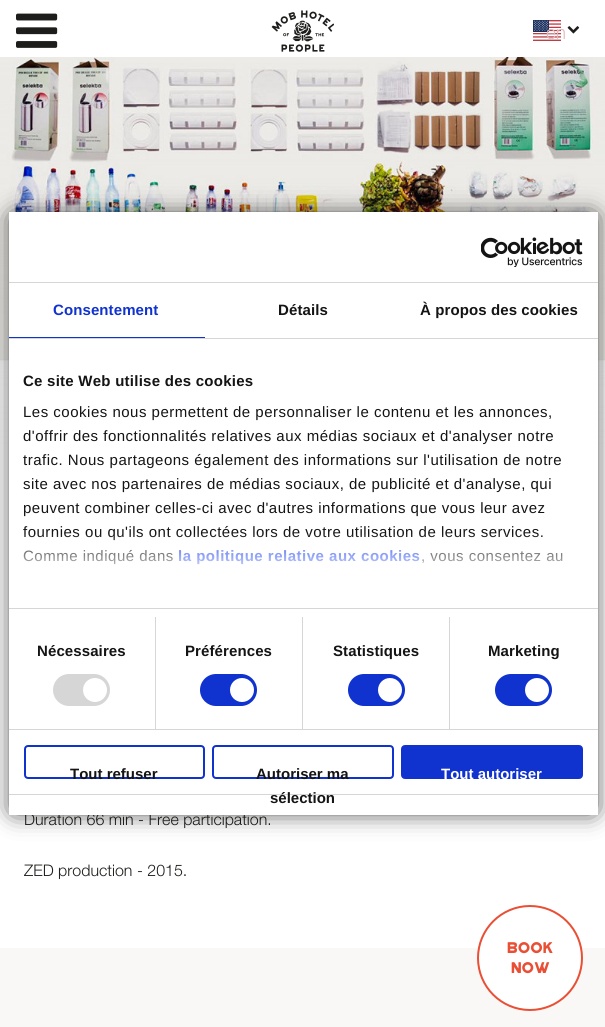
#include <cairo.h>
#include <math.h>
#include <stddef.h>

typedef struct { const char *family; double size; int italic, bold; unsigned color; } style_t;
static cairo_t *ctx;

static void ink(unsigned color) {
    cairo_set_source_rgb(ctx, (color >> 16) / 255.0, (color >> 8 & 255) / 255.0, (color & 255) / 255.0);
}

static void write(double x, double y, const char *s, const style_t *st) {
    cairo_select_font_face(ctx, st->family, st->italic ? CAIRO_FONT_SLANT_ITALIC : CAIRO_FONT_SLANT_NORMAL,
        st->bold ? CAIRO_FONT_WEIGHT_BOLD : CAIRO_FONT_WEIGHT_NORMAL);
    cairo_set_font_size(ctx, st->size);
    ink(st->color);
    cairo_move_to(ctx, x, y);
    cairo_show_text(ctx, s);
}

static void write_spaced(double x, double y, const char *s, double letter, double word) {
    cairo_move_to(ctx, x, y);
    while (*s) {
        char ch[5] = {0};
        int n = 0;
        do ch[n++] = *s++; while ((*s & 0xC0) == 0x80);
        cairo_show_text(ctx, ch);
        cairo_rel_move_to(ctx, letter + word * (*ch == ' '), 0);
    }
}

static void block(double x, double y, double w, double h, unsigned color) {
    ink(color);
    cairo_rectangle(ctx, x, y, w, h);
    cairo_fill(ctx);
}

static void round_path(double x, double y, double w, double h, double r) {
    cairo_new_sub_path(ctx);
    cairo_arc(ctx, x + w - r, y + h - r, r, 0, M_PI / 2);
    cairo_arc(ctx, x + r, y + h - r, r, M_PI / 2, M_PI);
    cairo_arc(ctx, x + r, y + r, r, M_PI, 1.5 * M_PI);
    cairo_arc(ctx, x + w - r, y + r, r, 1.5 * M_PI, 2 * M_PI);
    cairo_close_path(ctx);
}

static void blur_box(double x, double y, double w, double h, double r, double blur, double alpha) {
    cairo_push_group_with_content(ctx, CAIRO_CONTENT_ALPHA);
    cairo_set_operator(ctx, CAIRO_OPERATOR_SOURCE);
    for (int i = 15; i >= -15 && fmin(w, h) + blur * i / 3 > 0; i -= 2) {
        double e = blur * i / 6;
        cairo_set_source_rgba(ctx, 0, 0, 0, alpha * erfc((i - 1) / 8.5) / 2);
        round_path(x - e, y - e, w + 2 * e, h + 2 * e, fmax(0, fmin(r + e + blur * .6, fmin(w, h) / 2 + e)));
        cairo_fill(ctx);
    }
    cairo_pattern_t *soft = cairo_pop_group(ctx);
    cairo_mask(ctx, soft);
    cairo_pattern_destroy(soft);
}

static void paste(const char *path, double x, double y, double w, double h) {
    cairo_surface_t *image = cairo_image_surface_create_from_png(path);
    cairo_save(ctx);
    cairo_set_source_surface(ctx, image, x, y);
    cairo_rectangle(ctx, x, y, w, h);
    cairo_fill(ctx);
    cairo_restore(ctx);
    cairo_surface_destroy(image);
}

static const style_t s1 = {"Helvetica Neue Light", 19, 0, 0, 0xdfbbbf};
static const style_t s2 = {"Helvetica Neue Light", 16, 0, 0, 0x1d1d1b};
static const style_t s3 = {"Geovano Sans", 16, 0, 0, 0xe94f35};
static const style_t s4 = {"Liberation Sans", 15, 0, 1, 0x141414};
static const style_t s5 = {"Liberation Sans", 15, 0, 1, 0xffffff};

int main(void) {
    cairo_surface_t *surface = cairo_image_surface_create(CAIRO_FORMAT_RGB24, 605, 1027);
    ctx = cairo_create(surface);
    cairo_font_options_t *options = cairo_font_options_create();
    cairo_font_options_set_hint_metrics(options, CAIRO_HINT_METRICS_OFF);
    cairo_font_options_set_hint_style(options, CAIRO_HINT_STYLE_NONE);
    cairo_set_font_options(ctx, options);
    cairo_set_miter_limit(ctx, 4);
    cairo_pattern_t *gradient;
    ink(0xffffff);
    cairo_paint(ctx);
    paste("pic1.png", 16, 13, 42, 35);
    paste("pic2.png", 271, 10, 63, 42);
    paste("pic3.png", 533, 20, 28, 21);
    paste("pic4.png", 567, 26, 13, 8);
    write(546, 39, "en", &s1);
    paste("pic5.png", 0, 57, 605, 390);
    write(24, 825, "Duration 66 min - Free participation.", &s2);
    write(24, 876, "ZED production - 2015.", &s2);
    block(0, 948, 605, 79, 0xfaf8f6);
    ink(0xffffff);
    cairo_new_path(ctx);
    cairo_arc(ctx, 530, 958, 52, 0, 2 * M_PI);
    cairo_fill_preserve(ctx);
    ink(0xe94f35);
    cairo_stroke(ctx);
    write(507, 953, "BOOK", &s3);
    write(511, 973, "NOW", &s3);
    ink(0x121212);
    blur_box(14, 217, 579, 593, 0, 12.5, 1);
    block(9, 212, 589, 603, 0xffffff);
    block(9, 282, 589, 1, 0xd6d6d6);
    paste("pic6.png", 481, 237, 102, 30);
    block(9, 338, 589, 1, 0xd6d6d6);
    block(9, 337, 196, 1, 0x1032cf);
    cairo_select_font_face(ctx, "Liberation Sans", CAIRO_FONT_SLANT_NORMAL, CAIRO_FONT_WEIGHT_BOLD);
    cairo_set_font_size(ctx, 15);
    write_spaced(53, 315, "Consentement", 0.1, 0);
    ink(0x141414);
    write_spaced(278, 315, "Détails", 0.1, 0);
    write_spaced(420, 315, "À propos des cookies", 0.1, 0);
    block(9, 608, 589, 1, 0xd6d6d6);
    ink(0x141414);
    write_spaced(23, 386, "Ce site Web utilise des cookies", 0.25, 0);
    cairo_select_font_face(ctx, "Liberation Sans", CAIRO_FONT_SLANT_NORMAL, CAIRO_FONT_WEIGHT_NORMAL);
    write_spaced(23, 417, "Les cookies nous permettent de personnaliser le contenu et les annonces,", 0.5, 0);
    write_spaced(23, 441, "d'offrir des fonctionnalités relatives aux médias sociaux et d'analyser notre", 0.5, 0);
    write_spaced(23, 465, "trafic. Nous partageons également des informations sur l'utilisation de notre", 0.5, 0);
    write_spaced(23, 489, "site avec nos partenaires de médias sociaux, de publicité et d'analyse, qui", 0.5, 0);
    write_spaced(23, 513, "peuvent combiner celles-ci avec d'autres informations que vous leur avez", 0.5, 0);
    write_spaced(23, 537, "fournies ou qu'ils ont collectées lors de votre utilisation de leurs services.", 0.5, 0);
    write_spaced(23, 561, "Comme indiqué dans", 0.5, 0);
    cairo_select_font_face(ctx, "Liberation Sans", CAIRO_FONT_SLANT_NORMAL, CAIRO_FONT_WEIGHT_BOLD);
    ink(0x2a4eef);
    write_spaced(178, 561, "la politique relative aux cookies", 0.5, 0);
    cairo_select_font_face(ctx, "Liberation Sans", CAIRO_FONT_SLANT_NORMAL, CAIRO_FONT_WEIGHT_NORMAL);
    ink(0x141414);
    write_spaced(421, 561, ", vous consentez au", 0.5, 0);
    gradient = cairo_pattern_create_linear(297, 608, 297, 533);
    cairo_pattern_add_color_stop_rgba(gradient, 0, 1, 1, 1, 1);
    cairo_pattern_add_color_stop_rgba(gradient, 0.5, 1, 1, 1, 0.8);
    cairo_pattern_add_color_stop_rgba(gradient, 1, 1, 1, 1, 0);
    cairo_set_source(ctx, gradient);
    cairo_pattern_destroy(gradient);
    cairo_rectangle(ctx, 23, 534, 540, 31);
    cairo_fill(ctx);
    block(9, 729, 589, 1, 0xd6d6d6);
    block(155, 617, 1, 112, 0xd6d6d6);
    cairo_select_font_face(ctx, "Liberation Sans", CAIRO_FONT_SLANT_NORMAL, CAIRO_FONT_WEIGHT_BOLD);
    ink(0x141414);
    write_spaced(37, 656, "Nécessaires", 0.1, 0);
    ink(0xd6d6d6);
    round_path(53, 674, 57, 32, 16);
    cairo_fill(ctx);
    ink(0xffffff);
    cairo_arc(ctx, 95, 690, 12, 0, 2 * M_PI);
    cairo_fill(ctx);
    block(302, 617, 1, 112, 0xd6d6d6);
    ink(0x141414);
    write_spaced(185, 656, "Préférences", 0.1, 0);
    ink(0x1032cf);
    round_path(200, 674, 57, 32, 16);
    cairo_fill(ctx);
    ink(0xffffff);
    cairo_arc(ctx, 242, 690, 12, 0, 2 * M_PI);
    cairo_fill(ctx);
    block(449, 617, 1, 112, 0xd6d6d6);
    ink(0x141414);
    write_spaced(333, 656, "Statistiques", 0.1, 0);
    ink(0x1032cf);
    round_path(348, 674, 57, 32, 16);
    cairo_fill(ctx);
    ink(0xffffff);
    cairo_arc(ctx, 390, 690, 12, 0, 2 * M_PI);
    cairo_fill(ctx);
    ink(0x141414);
    write_spaced(488, 656, "Marketing", 0.1, 0);
    ink(0x1032cf);
    round_path(495, 674, 57, 32, 16);
    cairo_fill(ctx);
    ink(0xffffff);
    cairo_arc(ctx, 537, 690, 12, 0, 2 * M_PI);
    cairo_fill(ctx);
    block(9, 794, 589, 1, 0xd6d6d6);
    round_path(25, 746, 179, 32, 3);
    ink(0x1032cf);
    cairo_stroke(ctx);
    write(70, 779, "Tout refuser", &s4);
    round_path(213, 746, 180, 32, 3);
    ink(0x1032cf);
    cairo_stroke(ctx);
    write(256, 779, "Autoriser ma", &s4);
    write(270, 803, "sélection", &s4);
    ink(0x1032cf);
    round_path(402, 746, 180, 32, 3);
    cairo_fill_preserve(ctx);
    cairo_stroke(ctx);
    write(441, 779, "Tout autoriser", &s5);
    cairo_surface_write_to_png(surface, "screenshot.png");
    cairo_font_options_destroy(options);
    cairo_destroy(ctx);
    cairo_surface_destroy(surface);
    return 0;
}
